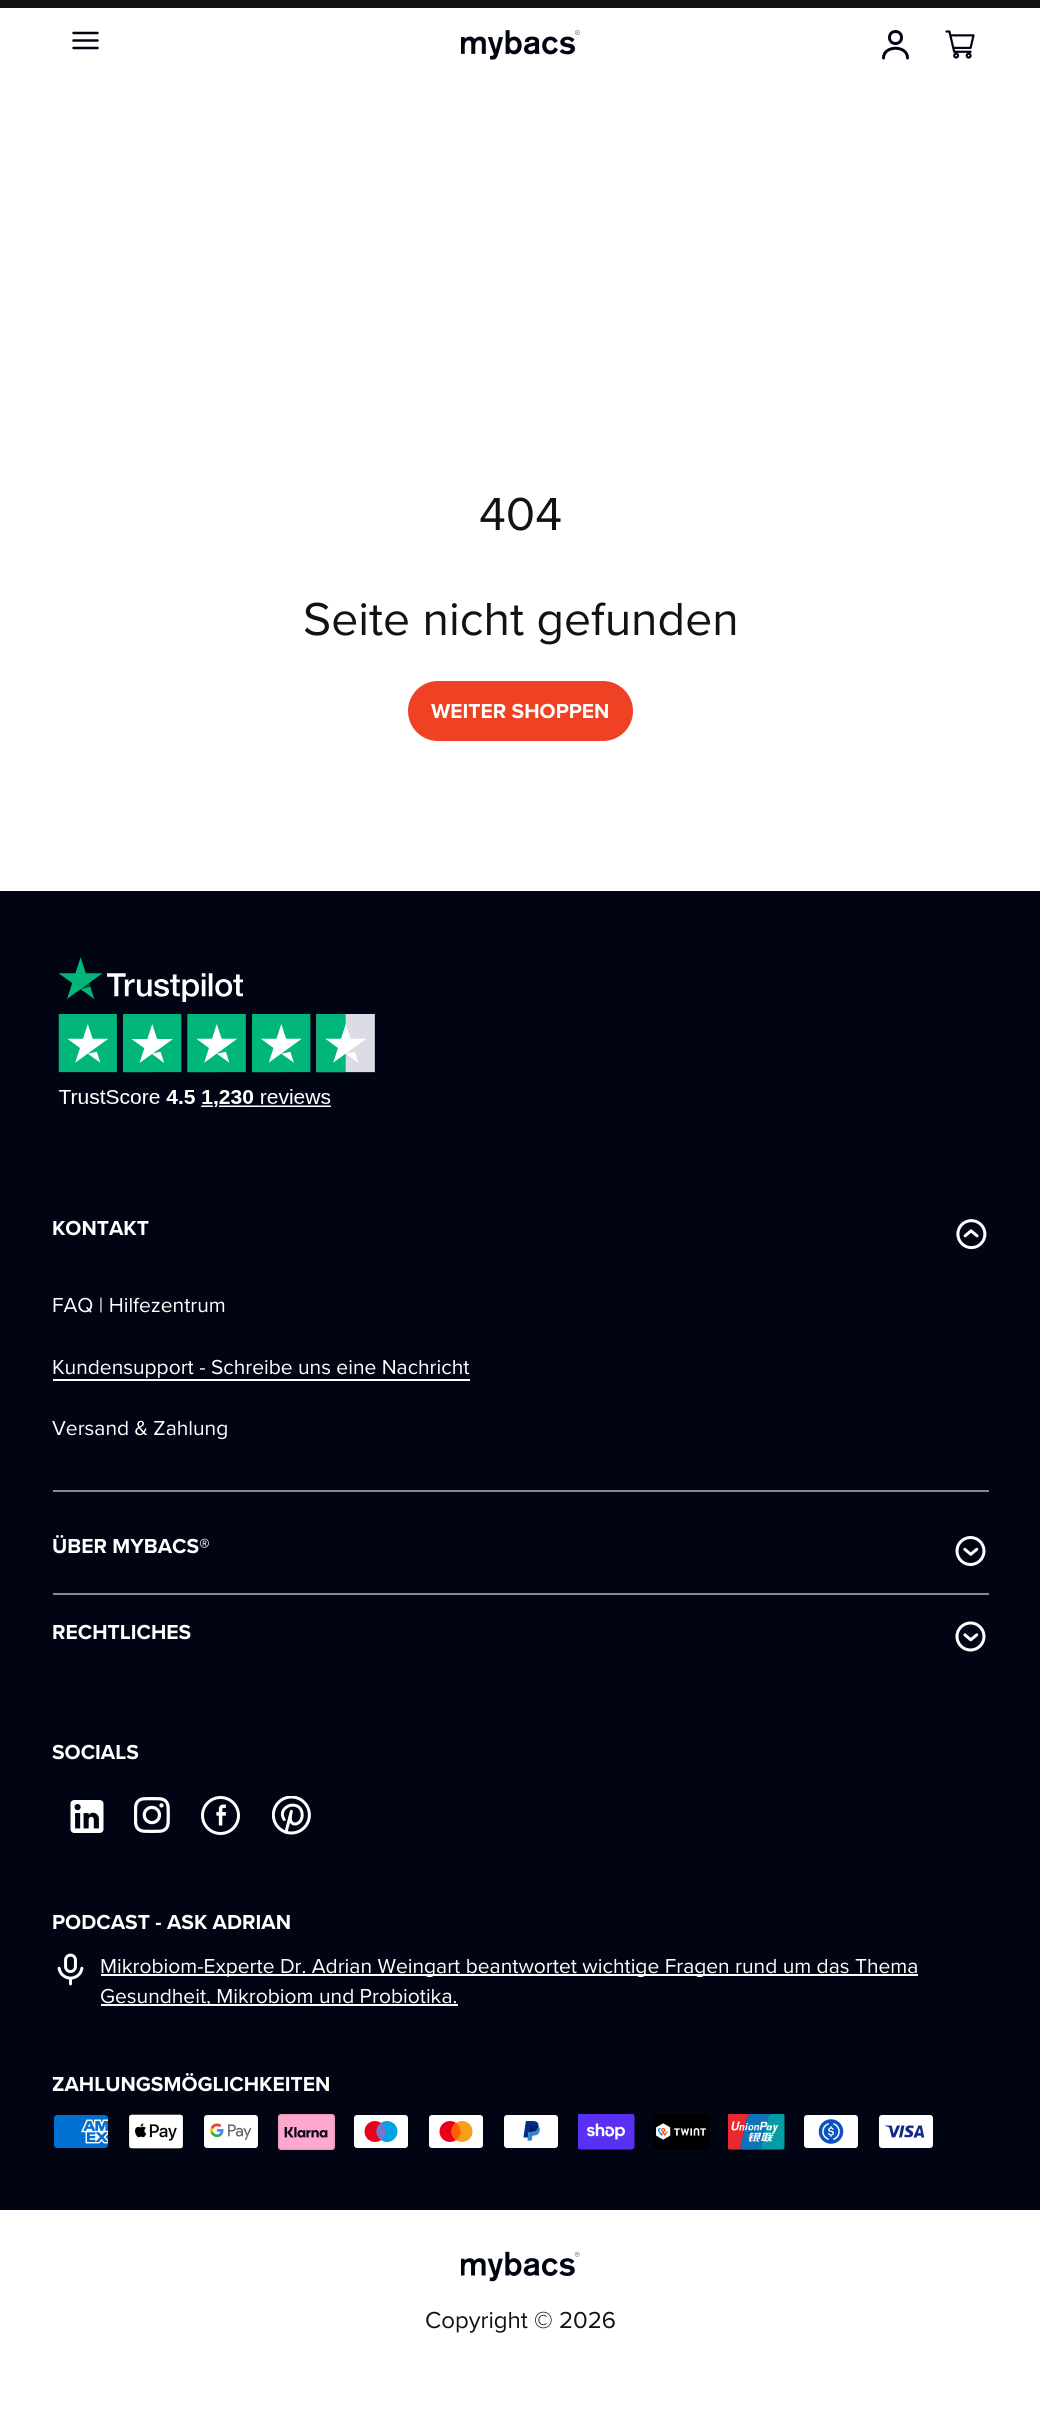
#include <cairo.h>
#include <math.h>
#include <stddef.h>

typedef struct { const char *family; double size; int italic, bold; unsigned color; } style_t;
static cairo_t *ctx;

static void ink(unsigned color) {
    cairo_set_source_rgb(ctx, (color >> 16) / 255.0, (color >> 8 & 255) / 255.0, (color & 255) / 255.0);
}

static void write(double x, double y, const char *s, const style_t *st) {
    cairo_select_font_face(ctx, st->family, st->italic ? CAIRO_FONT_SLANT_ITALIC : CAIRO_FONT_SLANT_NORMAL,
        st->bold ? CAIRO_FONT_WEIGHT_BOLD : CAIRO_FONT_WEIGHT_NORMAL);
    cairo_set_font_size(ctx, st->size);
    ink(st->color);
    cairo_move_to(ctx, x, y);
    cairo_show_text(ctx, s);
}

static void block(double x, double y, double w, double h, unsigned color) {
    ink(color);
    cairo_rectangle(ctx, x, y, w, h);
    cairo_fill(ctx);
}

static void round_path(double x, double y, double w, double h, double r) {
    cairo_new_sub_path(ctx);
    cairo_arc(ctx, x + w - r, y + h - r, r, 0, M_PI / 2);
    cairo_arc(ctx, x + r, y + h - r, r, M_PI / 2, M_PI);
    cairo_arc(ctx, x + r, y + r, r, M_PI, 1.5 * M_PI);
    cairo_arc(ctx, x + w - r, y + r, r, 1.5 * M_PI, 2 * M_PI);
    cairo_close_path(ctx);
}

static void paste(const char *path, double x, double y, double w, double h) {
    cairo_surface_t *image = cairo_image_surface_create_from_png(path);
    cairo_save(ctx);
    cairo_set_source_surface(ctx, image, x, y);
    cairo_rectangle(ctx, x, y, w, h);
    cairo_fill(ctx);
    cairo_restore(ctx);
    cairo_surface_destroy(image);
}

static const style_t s1 = {"Proxima Nova", 48, 0, 0, 0x121212};
static const style_t s2 = {"Proxima Nova", 21, 0, 1, 0xffffff};
static const style_t s3 = {"Proxima Nova", 21, 0, 0, 0xffffff};
static const style_t s4 = {"Proxima Nova", 24, 0, 0, 0x121212};

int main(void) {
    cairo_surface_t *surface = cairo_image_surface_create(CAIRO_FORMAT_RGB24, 1040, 2425);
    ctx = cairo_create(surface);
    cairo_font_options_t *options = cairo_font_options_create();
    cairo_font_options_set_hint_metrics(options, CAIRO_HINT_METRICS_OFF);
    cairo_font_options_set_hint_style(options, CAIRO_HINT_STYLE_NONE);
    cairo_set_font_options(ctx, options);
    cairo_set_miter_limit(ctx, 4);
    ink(0xffffff);
    cairo_paint(ctx);
    block(0, 0, 1040, 8, 0x121212);
    cairo_new_path(ctx);
    cairo_move_to(ctx, 73.5, 33);
    cairo_line_to(ctx, 97.5, 33);
    cairo_move_to(ctx, 73.5, 40.5);
    cairo_line_to(ctx, 97.5, 40.5);
    cairo_move_to(ctx, 73.5, 48);
    cairo_line_to(ctx, 97.5, 48);
    ink(0x000413);
    cairo_set_line_width(ctx, 2.5);
    cairo_set_line_cap(ctx, CAIRO_LINE_CAP_ROUND);
    cairo_stroke(ctx);
    paste("pic1.png", 461, 30, 119, 30);
    cairo_new_path(ctx);
    cairo_move_to(ctx, 883.5, 58);
    cairo_curve_to(ctx, 883.5, 45, 907.5, 45, 907.5, 58);
    cairo_move_to(ctx, 901.5, 37.5);
    cairo_curve_to(ctx, 901.5, 45.5, 889.5, 45.5, 889.5, 37.5);
    cairo_curve_to(ctx, 889.5, 29.5, 901.5, 29.5, 901.5, 37.5);
    cairo_close_path(ctx);
    cairo_set_line_width(ctx, 3);
    cairo_stroke(ctx);
    paste("pic2.png", 945, 30, 30, 29);
    write(479, 530, "404", &s1);
    write(303, 635, "Seite nicht gefunden", &s1);
    ink(0xef4123);
    round_path(408, 681, 225, 60, 30);
    cairo_fill(ctx);
    write(431, 718, "WEITER SHOPPEN", &s2);
    block(0, 891, 1040, 1319, 0x000413);
    paste("pic3.png", 58, 957, 317, 150);
    block(53, 1490, 936, 2, 0x878b8f);
    write(52, 1235, "KONTAKT", &s2);
    paste("pic4.png", 956, 1219, 31, 31);
    write(52, 1312, "FAQ | Hilfezentrum", &s3);
    write(52, 1374, "Kundensupport - Schreibe uns eine Nachricht", &s3);
    block(53, 1379, 417, 2, 0xffffff);
    write(52, 1435, "Versand & Zahlung", &s3);
    block(53, 1593, 936, 2, 0x878b8f);
    write(52, 1553, "ÜBER MYBACS®", &s2);
    paste("pic5.png", 955, 1536, 31, 30);
    write(52, 1639, "RECHTLICHES", &s2);
    paste("pic6.png", 955, 1621, 31, 31);
    write(52, 1759, "SOCIALS", &s2);
    paste("pic7.png", 70, 1800, 34, 33);
    paste("pic8.png", 134, 1797, 36, 36);
    paste("pic9.png", 201, 1796, 39, 39);
    paste("pic10.png", 272, 1796, 39, 39);
    write(52, 1929, "PODCAST - ASK ADRIAN", &s2);
    paste("pic11.png", 57, 1953, 27, 33);
    block(101, 1974, 817, 2, 0xffffff);
    write(100, 1973, "Mikrobiom-Experte Dr. Adrian Weingart beantwortet wichtige Fragen rund um das Thema", &s3);
    block(101, 2004, 357, 2, 0xffffff);
    write(100, 2003, "Gesundheit, Mikrobiom und Probiotika.", &s3);
    write(52, 2091, "ZAHLUNGSMÖGLICHKEITEN", &s2);
    paste("pic12.png", 54, 2115, 54, 33);
    paste("pic13.png", 128, 2114, 56, 36);
    paste("pic14.png", 204, 2115, 54, 33);
    paste("pic15.png", 278, 2114, 57, 36);
    paste("pic16.png", 354, 2115, 54, 33);
    paste("pic17.png", 429, 2115, 54, 33);
    paste("pic18.png", 504, 2115, 54, 33);
    paste("pic19.png", 578, 2114, 57, 36);
    paste("pic20.png", 653, 2114, 57, 36);
    paste("pic21.png", 728, 2114, 57, 36);
    paste("pic22.png", 804, 2115, 54, 33);
    paste("pic23.png", 879, 2115, 54, 33);
    paste("pic24.png", 461, 2251, 119, 31);
    write(425, 2328, "Copyright © 2026", &s4);
    cairo_surface_write_to_png(surface, "screenshot.png");
    cairo_font_options_destroy(options);
    cairo_destroy(ctx);
    cairo_surface_destroy(surface);
    return 0;
}
